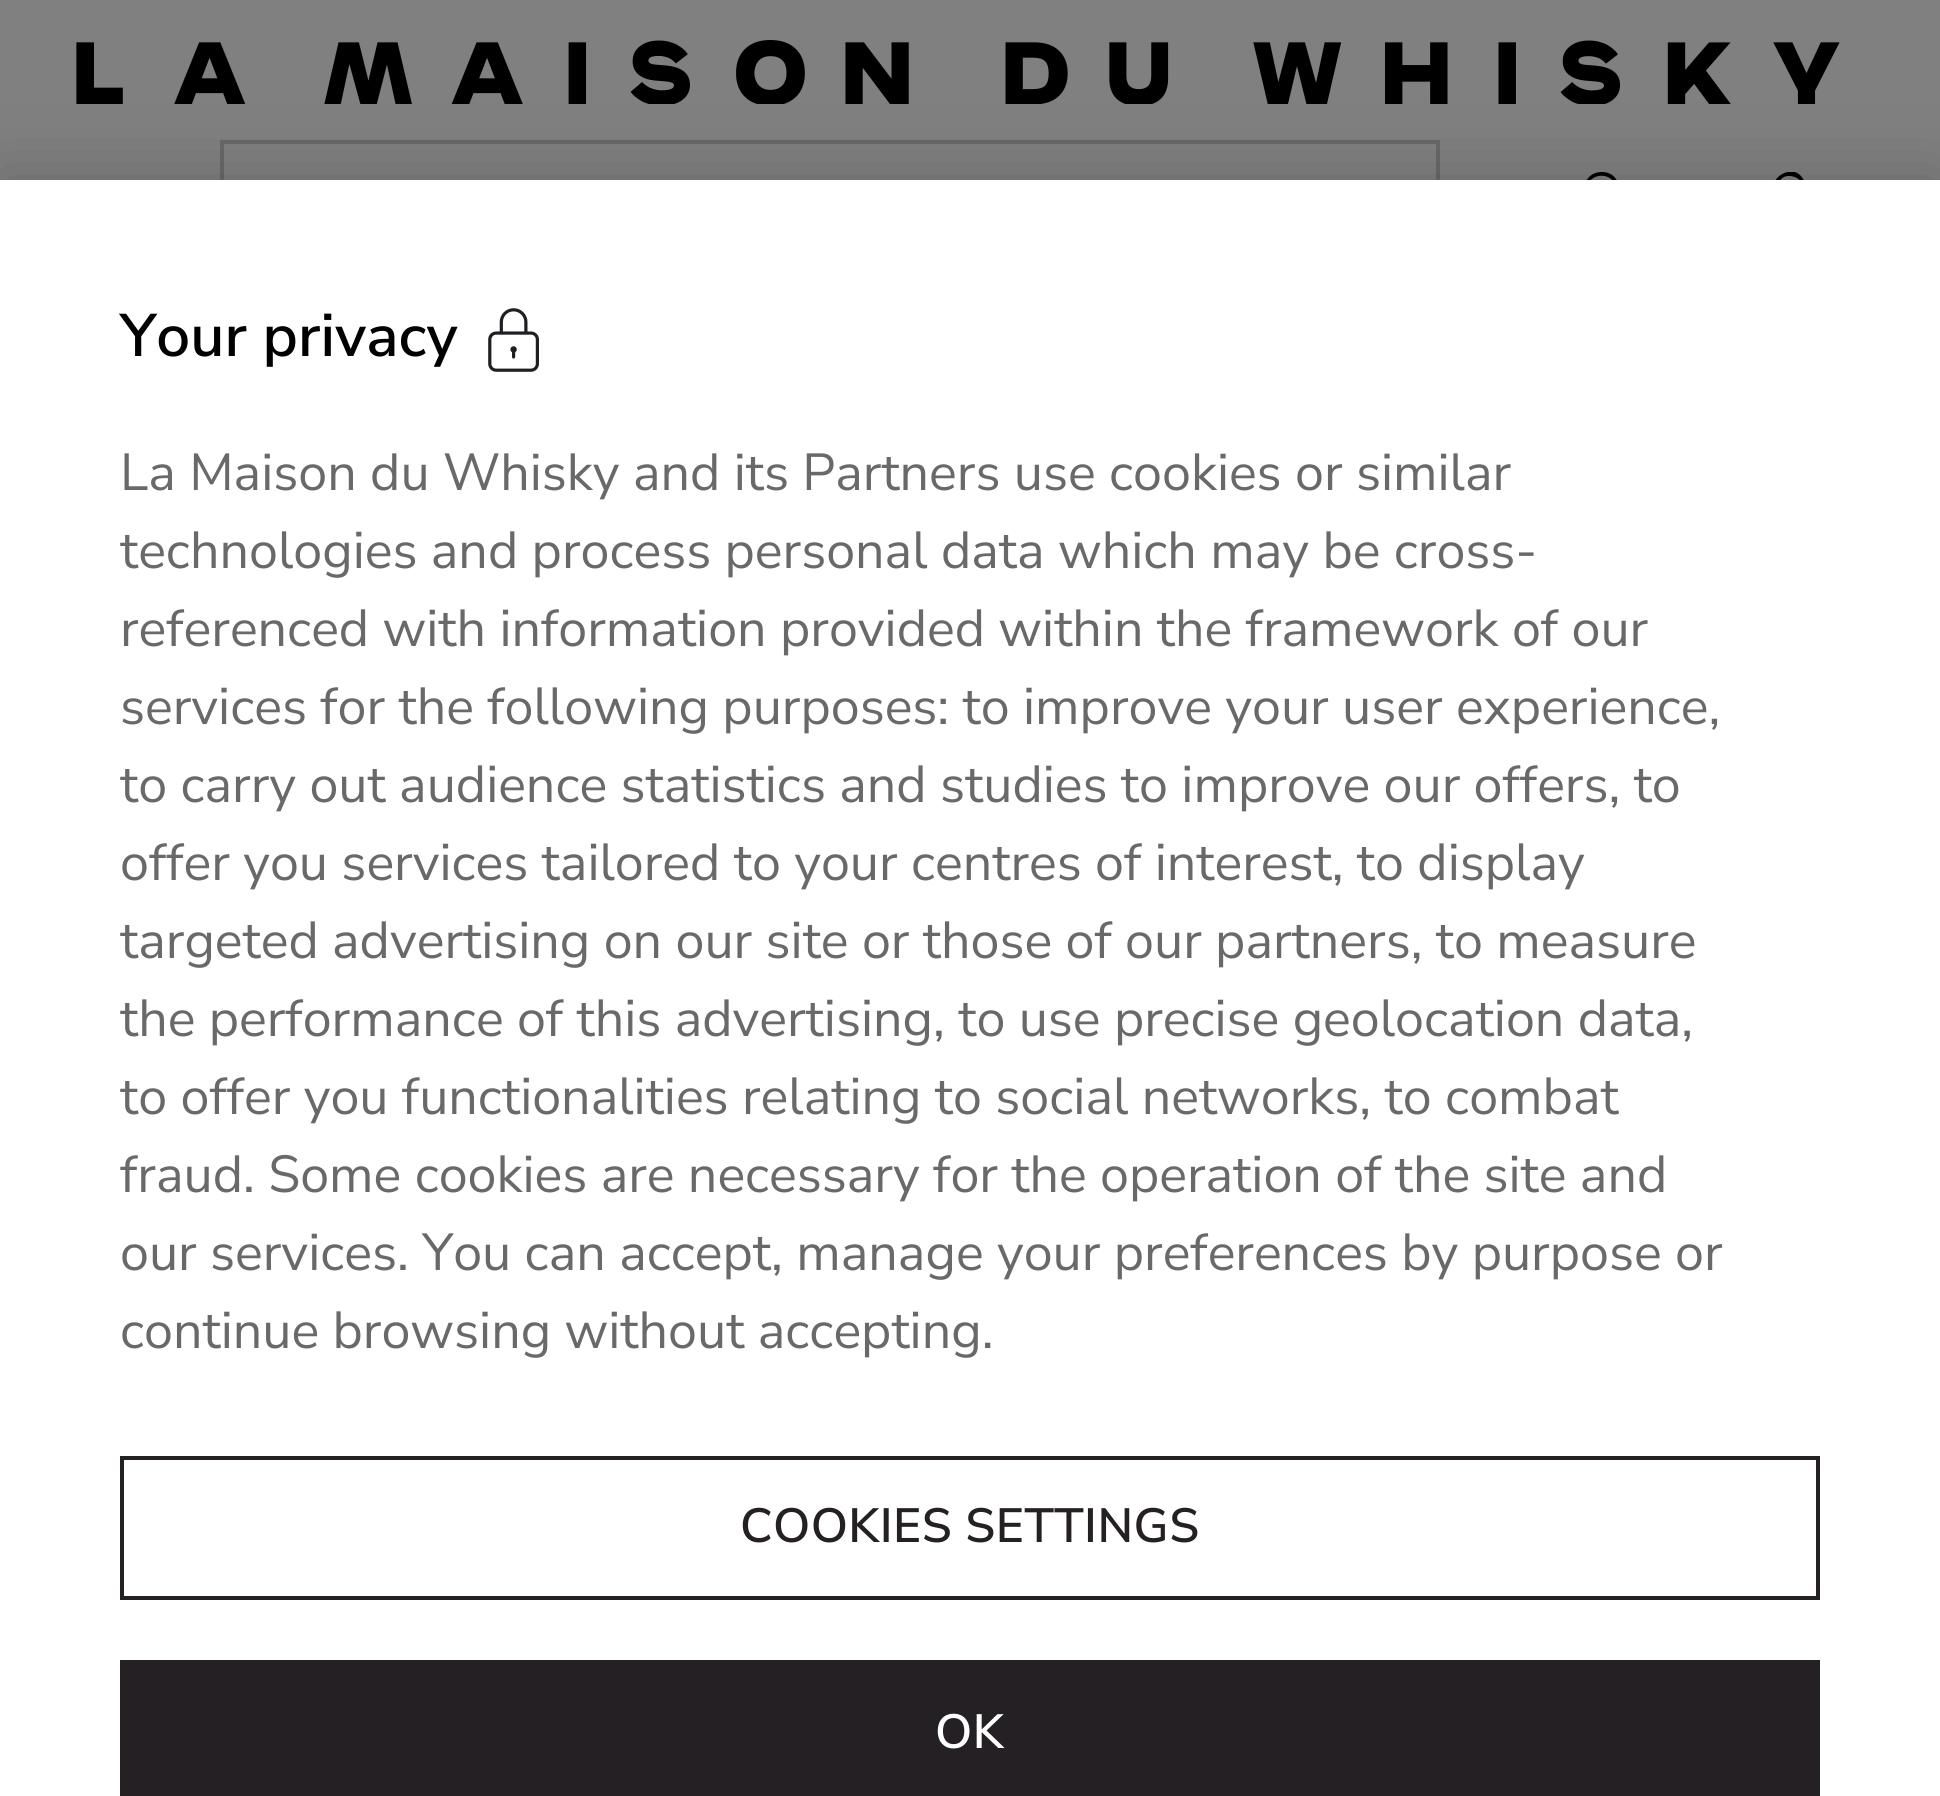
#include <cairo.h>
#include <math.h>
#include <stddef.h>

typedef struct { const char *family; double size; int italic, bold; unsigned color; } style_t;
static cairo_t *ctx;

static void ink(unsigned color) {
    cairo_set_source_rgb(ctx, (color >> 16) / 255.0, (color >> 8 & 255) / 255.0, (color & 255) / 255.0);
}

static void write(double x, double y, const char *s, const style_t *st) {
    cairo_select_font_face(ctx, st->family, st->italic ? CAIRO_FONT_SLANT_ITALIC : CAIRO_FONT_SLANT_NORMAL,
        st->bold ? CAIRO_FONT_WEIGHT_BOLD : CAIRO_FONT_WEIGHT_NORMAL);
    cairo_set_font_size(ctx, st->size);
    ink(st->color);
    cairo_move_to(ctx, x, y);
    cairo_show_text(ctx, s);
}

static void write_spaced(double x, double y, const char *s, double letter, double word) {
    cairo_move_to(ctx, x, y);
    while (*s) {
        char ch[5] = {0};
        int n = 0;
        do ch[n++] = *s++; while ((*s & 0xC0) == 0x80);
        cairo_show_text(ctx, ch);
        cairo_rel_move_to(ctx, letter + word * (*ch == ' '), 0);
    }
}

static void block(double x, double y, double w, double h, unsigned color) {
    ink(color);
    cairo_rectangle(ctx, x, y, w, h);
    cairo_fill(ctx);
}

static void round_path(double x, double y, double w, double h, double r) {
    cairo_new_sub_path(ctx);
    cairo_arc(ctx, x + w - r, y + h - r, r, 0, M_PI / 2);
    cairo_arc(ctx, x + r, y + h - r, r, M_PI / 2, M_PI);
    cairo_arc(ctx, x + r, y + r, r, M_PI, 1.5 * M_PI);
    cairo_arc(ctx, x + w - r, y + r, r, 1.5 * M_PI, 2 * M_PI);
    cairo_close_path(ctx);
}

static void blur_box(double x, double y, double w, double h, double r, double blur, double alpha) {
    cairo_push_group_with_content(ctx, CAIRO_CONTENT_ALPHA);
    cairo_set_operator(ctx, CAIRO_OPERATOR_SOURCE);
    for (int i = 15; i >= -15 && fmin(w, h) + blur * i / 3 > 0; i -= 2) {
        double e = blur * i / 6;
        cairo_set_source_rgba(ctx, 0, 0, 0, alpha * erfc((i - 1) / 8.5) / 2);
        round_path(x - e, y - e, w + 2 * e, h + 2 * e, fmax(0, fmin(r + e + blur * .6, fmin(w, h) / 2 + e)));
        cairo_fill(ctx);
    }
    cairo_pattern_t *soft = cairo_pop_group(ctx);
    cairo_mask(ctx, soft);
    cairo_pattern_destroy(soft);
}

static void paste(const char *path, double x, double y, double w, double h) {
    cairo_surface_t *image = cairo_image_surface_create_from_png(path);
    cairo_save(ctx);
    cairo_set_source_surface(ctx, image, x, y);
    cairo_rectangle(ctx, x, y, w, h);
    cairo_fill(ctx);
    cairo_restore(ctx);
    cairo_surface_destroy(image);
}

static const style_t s1 = {"Nunito Sans SemiBold", 60, 0, 0, 0x000000};
static const style_t s2 = {"Nunito Sans", 52, 0, 0, 0x696969};

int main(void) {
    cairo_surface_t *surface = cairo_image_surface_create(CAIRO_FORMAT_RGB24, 1940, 1796);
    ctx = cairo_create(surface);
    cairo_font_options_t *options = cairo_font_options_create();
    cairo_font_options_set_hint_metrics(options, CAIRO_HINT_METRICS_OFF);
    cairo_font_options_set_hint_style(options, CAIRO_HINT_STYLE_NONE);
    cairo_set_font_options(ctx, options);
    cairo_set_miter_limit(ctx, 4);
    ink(0x808080);
    cairo_paint(ctx);
    paste("pic1.png", 76, 40, 1764, 64);
    cairo_rectangle(ctx, 222, 142, 1216, 156);
    ink(0x686868);
    cairo_set_line_width(ctx, 4);
    cairo_stroke(ctx);
    ink(0x000000);
    cairo_set_fill_rule(ctx, CAIRO_FILL_RULE_EVEN_ODD);
    cairo_new_path(ctx);
    cairo_move_to(ctx, 1587, 190);
    cairo_curve_to(ctx, 1587, 171, 1616, 171, 1616, 190);
    cairo_curve_to(ctx, 1616, 209, 1587, 209, 1587, 190);
    cairo_close_path(ctx);
    cairo_move_to(ctx, 1602, 172);
    cairo_curve_to(ctx, 1578, 172, 1578, 208, 1602, 208);
    cairo_curve_to(ctx, 1625, 208, 1625, 172, 1602, 172);
    cairo_close_path(ctx);
    cairo_move_to(ctx, 1640, 259);
    cairo_line_to(ctx, 1639, 265);
    cairo_line_to(ctx, 1564, 265);
    cairo_line_to(ctx, 1563, 259);
    cairo_curve_to(ctx, 1563, 238, 1580, 220, 1602, 220);
    cairo_curve_to(ctx, 1624, 220, 1640, 238, 1640, 259);
    cairo_close_path(ctx);
    cairo_move_to(ctx, 1643, 259);
    cairo_line_to(ctx, 1642, 268);
    cairo_line_to(ctx, 1561, 268);
    cairo_line_to(ctx, 1560, 259);
    cairo_curve_to(ctx, 1560, 236, 1578, 217, 1602, 216);
    cairo_curve_to(ctx, 1625, 217, 1644, 236, 1643, 259);
    cairo_close_path(ctx);
    cairo_fill(ctx);
    cairo_save(ctx);
    cairo_set_fill_rule(ctx, CAIRO_FILL_RULE_WINDING);
    cairo_rectangle(ctx, 1756, 172, 68, 96);
    cairo_clip(ctx);
    cairo_set_fill_rule(ctx, CAIRO_FILL_RULE_EVEN_ODD);
    cairo_new_path(ctx);
    cairo_move_to(ctx, 1772, 196);
    cairo_curve_to(ctx, 1772, 191, 1772, 187, 1774, 183);
    cairo_curve_to(ctx, 1778, 173, 1793, 167, 1801, 176);
    cairo_curve_to(ctx, 1806, 182, 1807, 189, 1807, 196);
    cairo_line_to(ctx, 1823, 196);
    cairo_line_to(ctx, 1823, 268);
    cairo_line_to(ctx, 1756, 268);
    cairo_line_to(ctx, 1756, 196);
    cairo_close_path(ctx);
    cairo_move_to(ctx, 1776, 196);
    cairo_curve_to(ctx, 1776, 187, 1779, 175, 1790, 176);
    cairo_curve_to(ctx, 1801, 177, 1804, 185, 1804, 196);
    cairo_close_path(ctx);
    cairo_move_to(ctx, 1772, 199);
    cairo_line_to(ctx, 1772, 218);
    cairo_line_to(ctx, 1775, 218);
    cairo_line_to(ctx, 1775, 199);
    cairo_line_to(ctx, 1804, 199);
    cairo_line_to(ctx, 1804, 218);
    cairo_line_to(ctx, 1807, 218);
    cairo_line_to(ctx, 1807, 199);
    cairo_line_to(ctx, 1820, 199);
    cairo_line_to(ctx, 1820, 265);
    cairo_line_to(ctx, 1759, 265);
    cairo_line_to(ctx, 1759, 199);
    cairo_close_path(ctx);
    cairo_fill(ctx);
    cairo_restore(ctx);
    ink(0x000000);
    blur_box(0, 180, 1940, 1616, 0, 36, 0.2);
    block(0, 180, 1940, 1616, 0xffffff);
    write(120, 356, "Your privacy", &s1);
    paste("pic2.png", 488, 308, 51, 64);
    write(120, 490, "La Maison du Whisky and its Partners use cookies or similar", &s2);
    write(120, 568, "technologies and process personal data which may be cross-", &s2);
    write(120, 646, "referenced with information provided within the framework of our", &s2);
    write(120, 724, "services for the following purposes: to improve your user experience,", &s2);
    write(120, 802, "to carry out audience statistics and studies to improve our offers, to", &s2);
    write(120, 880, "offer you services tailored to your centres of interest, to display", &s2);
    write(120, 958, "targeted advertising on our site or those of our partners, to measure", &s2);
    write(120, 1036, "the performance of this advertising, to use precise geolocation data,", &s2);
    write(120, 1114, "to offer you functionalities relating to social networks, to combat", &s2);
    write(120, 1192, "fraud. Some cookies are necessary for the operation of the site and", &s2);
    write(120, 1270, "our services. You can accept, manage your preferences by purpose or", &s2);
    write(120, 1348, "continue browsing without accepting.", &s2);
    cairo_rectangle(ctx, 122, 1458, 1696, 140);
    ink(0x252024);
    cairo_stroke(ctx);
    cairo_select_font_face(ctx, "Nunito Sans SemiBold", CAIRO_FONT_SLANT_NORMAL, CAIRO_FONT_WEIGHT_NORMAL);
    cairo_set_font_size(ctx, 48);
    write_spaced(740, 1542, "COOKIES SETTINGS", 0.5, 0);
    block(120, 1660, 1700, 136, 0x252024);
    ink(0xffffff);
    write_spaced(935, 1748, "OK", 0.5, 0);
    cairo_surface_write_to_png(surface, "screenshot.png");
    cairo_font_options_destroy(options);
    cairo_destroy(ctx);
    cairo_surface_destroy(surface);
    return 0;
}
